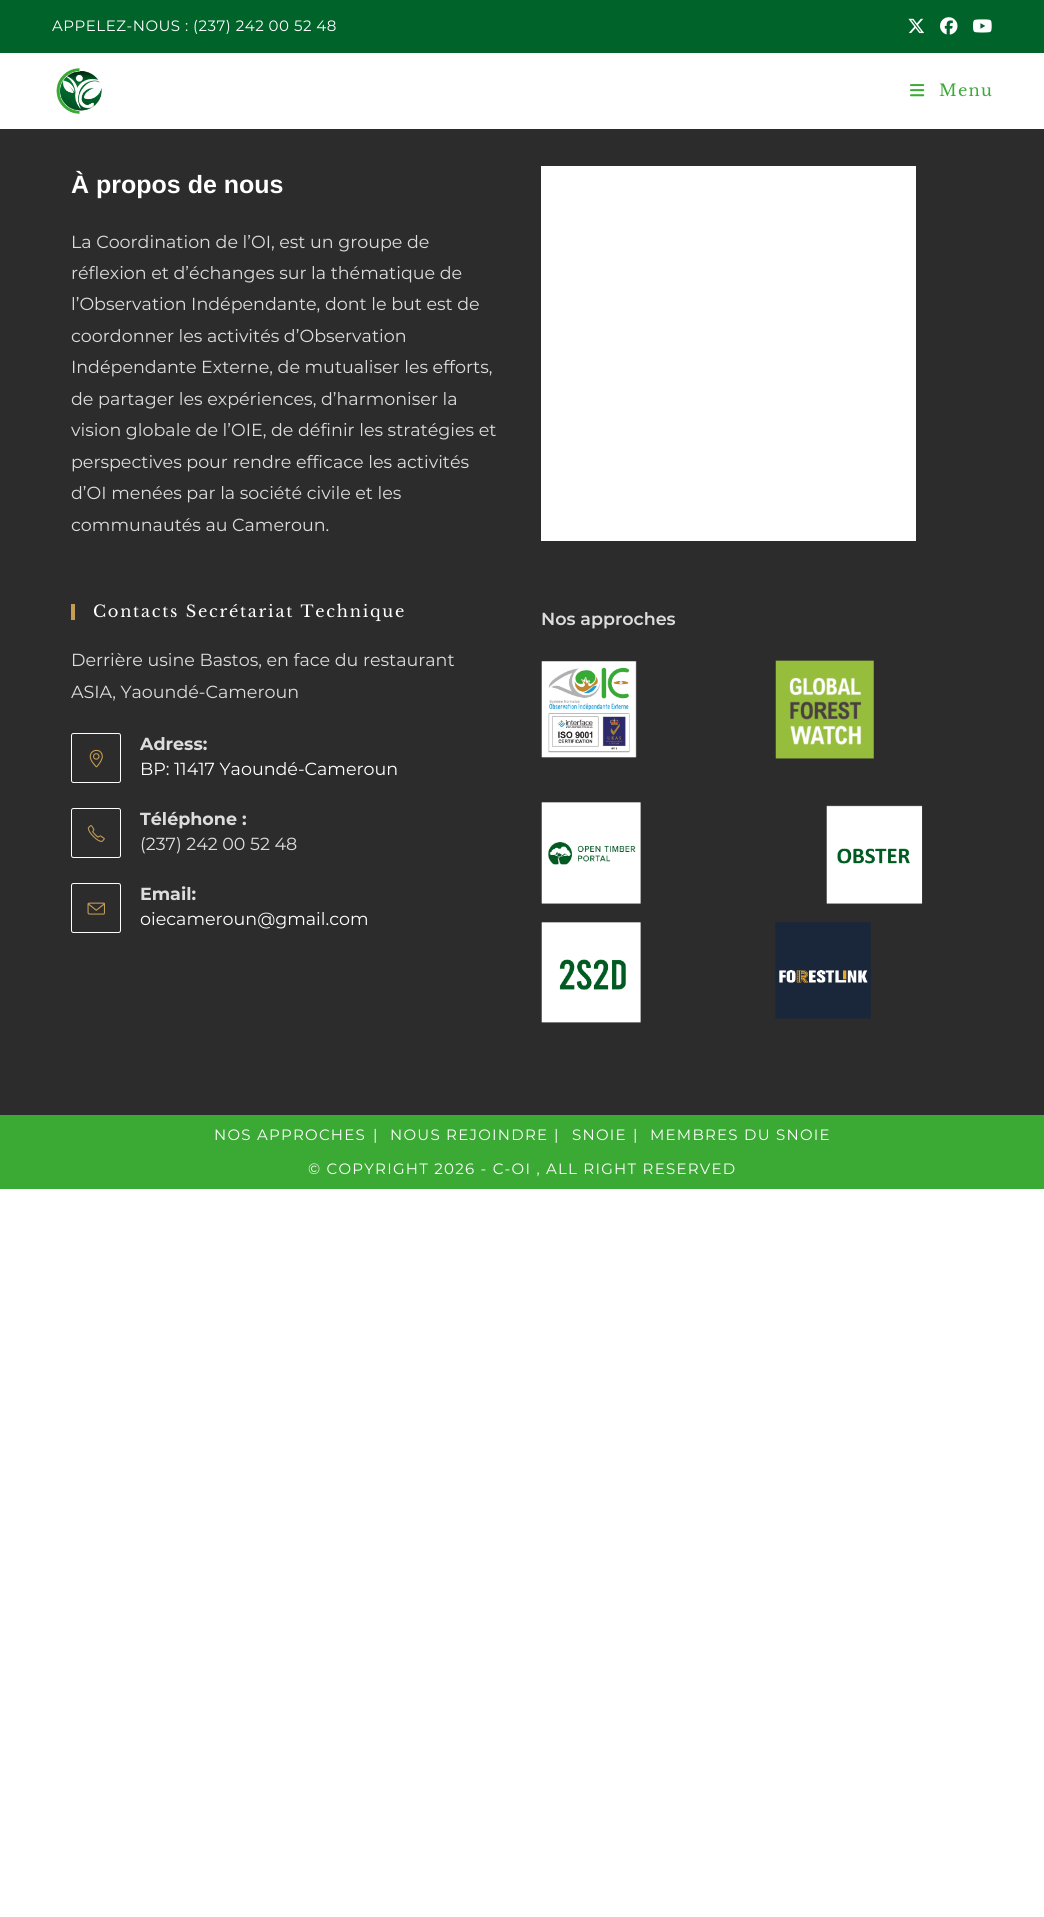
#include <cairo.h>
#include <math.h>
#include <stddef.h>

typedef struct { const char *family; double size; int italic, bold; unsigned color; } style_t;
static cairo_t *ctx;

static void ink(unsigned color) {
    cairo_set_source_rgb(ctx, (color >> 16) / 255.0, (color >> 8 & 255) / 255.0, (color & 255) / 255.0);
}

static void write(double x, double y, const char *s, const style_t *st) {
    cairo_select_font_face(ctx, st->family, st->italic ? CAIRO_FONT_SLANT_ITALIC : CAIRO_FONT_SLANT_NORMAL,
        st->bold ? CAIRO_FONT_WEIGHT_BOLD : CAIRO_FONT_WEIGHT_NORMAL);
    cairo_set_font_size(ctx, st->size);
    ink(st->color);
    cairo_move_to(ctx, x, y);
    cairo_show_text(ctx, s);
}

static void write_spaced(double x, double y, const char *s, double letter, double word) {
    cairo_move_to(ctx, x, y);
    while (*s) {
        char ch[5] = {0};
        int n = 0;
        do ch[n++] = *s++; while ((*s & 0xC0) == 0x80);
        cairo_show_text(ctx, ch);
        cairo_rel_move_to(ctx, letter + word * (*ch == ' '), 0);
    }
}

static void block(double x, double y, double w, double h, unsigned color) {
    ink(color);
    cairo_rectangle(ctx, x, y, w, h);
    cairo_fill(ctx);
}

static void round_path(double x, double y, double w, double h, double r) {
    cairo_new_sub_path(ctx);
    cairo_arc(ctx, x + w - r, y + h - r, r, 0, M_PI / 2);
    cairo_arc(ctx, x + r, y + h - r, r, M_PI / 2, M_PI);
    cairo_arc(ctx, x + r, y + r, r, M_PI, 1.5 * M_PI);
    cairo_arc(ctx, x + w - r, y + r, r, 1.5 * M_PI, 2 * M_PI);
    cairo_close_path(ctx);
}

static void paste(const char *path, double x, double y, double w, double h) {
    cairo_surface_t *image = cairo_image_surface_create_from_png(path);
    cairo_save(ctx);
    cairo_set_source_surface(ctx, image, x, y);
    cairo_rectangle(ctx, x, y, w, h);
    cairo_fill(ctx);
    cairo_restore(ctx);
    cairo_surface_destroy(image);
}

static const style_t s1 = {"Liberation Sans", 25, 0, 1, 0xffffff};
static const style_t s2 = {"Montserrat", 17.5, 0, 0, 0xdddddd};
static const style_t s3 = {"Montserrat", 17.5, 0, 1, 0xdddddd};
static const style_t s4 = {"Montserrat", 17.5, 0, 0, 0xffffff};
static const style_t s5 = {"Montserrat SemiBold", 17.5, 0, 0, 0xdddddd};

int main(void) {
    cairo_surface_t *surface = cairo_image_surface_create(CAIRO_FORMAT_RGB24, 1044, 1917);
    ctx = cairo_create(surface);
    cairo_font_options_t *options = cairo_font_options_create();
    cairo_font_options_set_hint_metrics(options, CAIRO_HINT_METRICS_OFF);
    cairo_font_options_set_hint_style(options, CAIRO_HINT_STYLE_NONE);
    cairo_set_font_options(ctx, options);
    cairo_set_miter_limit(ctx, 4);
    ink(0xffffff);
    cairo_paint(ctx);
    block(0, 0, 1044, 53, 0x00632a);
    cairo_select_font_face(ctx, "Montserrat", CAIRO_FONT_SLANT_NORMAL, CAIRO_FONT_WEIGHT_NORMAL);
    cairo_set_font_size(ctx, 15);
    ink(0xffffff);
    write_spaced(52, 31, "APPELEZ-NOUS : (237) 242 00 52 48", 0.5, 0);
    paste("pic1.png", 908, 18, 16, 16);
    paste("pic2.png", 940, 17, 18, 18);
    paste("pic3.png", 973, 19, 19, 14);
    paste("pic4.png", 56, 68, 46, 46);
    paste("pic5.png", 910, 84, 15, 13);
    cairo_select_font_face(ctx, "Libre Baskerville", CAIRO_FONT_SLANT_NORMAL, CAIRO_FONT_WEIGHT_NORMAL);
    cairo_set_font_size(ctx, 16.25);
    ink(0x3caa37);
    write_spaced(939, 96, "Menu", 1.25, 0);
    block(0, 129, 1044, 986, 0x2c2c2c);
    write(71, 193, "À propos de nous", &s1);
    write(71, 248, "La Coordination de l’OI, est un groupe de", &s2);
    write(71, 279, "réflexion et d’échanges sur la thématique de", &s2);
    write(71, 310, "l’Observation Indépendante, dont le but est de", &s2);
    write(71, 342, "coordonner les activités d’Observation", &s2);
    write(71, 373, "Indépendante Externe, de mutualiser les efforts,", &s2);
    write(71, 405, "de partager les expériences, d’harmoniser la", &s2);
    write(71, 436, "vision globale de l’OIE, de définir les stratégies et", &s2);
    write(71, 468, "perspectives pour rendre efficace les activités", &s2);
    write(71, 499, "d’OI menées par la société civile et les", &s2);
    write(71, 531, "communautés au Cameroun.", &s2);
    block(541, 166, 375, 375, 0xffffff);
    block(71, 604, 4, 16, 0xc59d55);
    cairo_select_font_face(ctx, "Libre Baskerville", CAIRO_FONT_SLANT_NORMAL, CAIRO_FONT_WEIGHT_NORMAL);
    cairo_set_font_size(ctx, 16.25);
    ink(0xffffff);
    write_spaced(93, 617, "Contacts Secrétariat Technique", 1.75, 0);
    write(71, 666, "Derrière usine Bastos, en face du restaurant", &s2);
    write(71, 698, "ASIA, Yaoundé-Cameroun", &s2);
    round_path(71.5, 733.5, 49, 49, 2);
    ink(0xffffff);
    cairo_set_line_width(ctx, 1);
    cairo_stroke(ctx);
    paste("pic6.png", 89, 749, 14, 19);
    write(140, 750, "Adress:", &s3);
    write(140, 775, "BP: 11417 Yaoundé-Cameroun", &s4);
    round_path(71.5, 808.5, 49, 49, 2);
    cairo_stroke(ctx);
    paste("pic7.png", 87, 825, 18, 17);
    write(140, 825, "Téléphone :", &s3);
    write(140, 850, "(237) 242 00 52 48", &s2);
    round_path(71.5, 883.5, 49, 49, 2);
    ink(0xffffff);
    cairo_stroke(ctx);
    paste("pic8.png", 87, 902, 18, 13);
    write(140, 900, "Email:", &s3);
    write(140, 925, "oiecameroun@gmail.com", &s4);
    write(541, 625, "Nos approches", &s5);
    paste("pic9.png", 541, 661, 96, 97);
    paste("pic10.png", 775, 660, 99, 99);
    paste("pic11.png", 541, 802, 100, 102);
    paste("pic12.png", 541, 922, 100, 101);
    paste("pic13.png", 826, 805, 97, 99);
    paste("pic14.png", 775, 922, 96, 97);
    block(0, 1115, 1044, 74, 0x3baa34);
    cairo_select_font_face(ctx, "Montserrat", CAIRO_FONT_SLANT_NORMAL, CAIRO_FONT_WEIGHT_NORMAL);
    cairo_set_font_size(ctx, 15);
    ink(0xffffff);
    write_spaced(214, 1140, "NOS APPROCHES", 1.25, 0);
    write_spaced(373, 1140, "|", 1.25, 0);
    write_spaced(390, 1140, "NOUS REJOINDRE", 1.25, 0);
    write_spaced(554, 1140, "|", 1.25, 0);
    write_spaced(572, 1140, "SNOIE", 1.25, 0);
    write_spaced(633, 1140, "|", 1.25, 0);
    write_spaced(650, 1140, "MEMBRES DU SNOIE", 1.25, 0);
    write_spaced(308, 1174, "© COPYRIGHT 2026 - C-OI , ALL RIGHT RESERVED", 1.25, 0);
    cairo_surface_write_to_png(surface, "screenshot.png");
    cairo_font_options_destroy(options);
    cairo_destroy(ctx);
    cairo_surface_destroy(surface);
    return 0;
}
